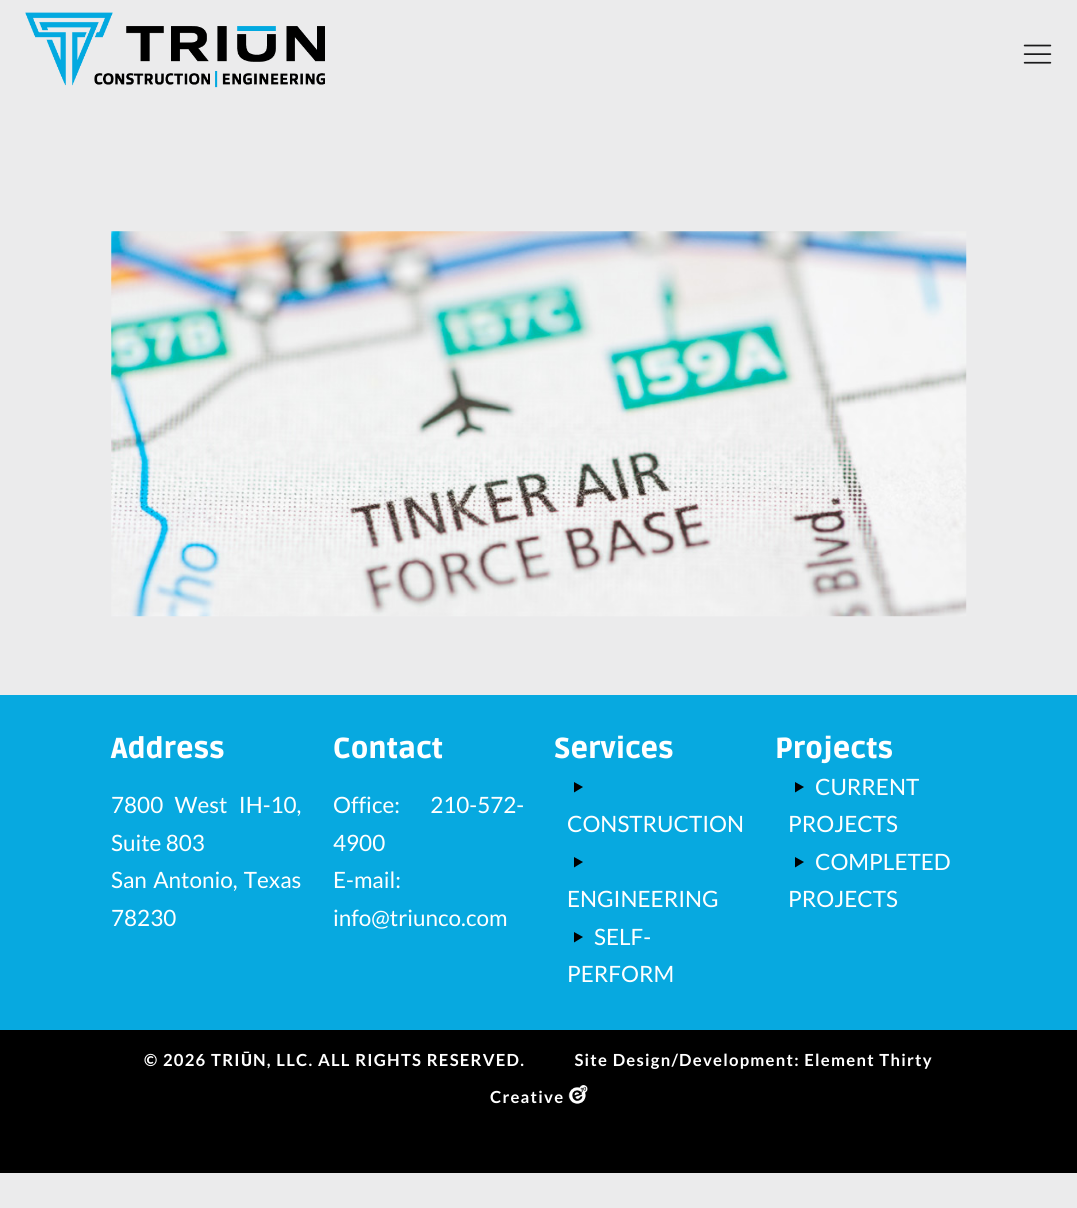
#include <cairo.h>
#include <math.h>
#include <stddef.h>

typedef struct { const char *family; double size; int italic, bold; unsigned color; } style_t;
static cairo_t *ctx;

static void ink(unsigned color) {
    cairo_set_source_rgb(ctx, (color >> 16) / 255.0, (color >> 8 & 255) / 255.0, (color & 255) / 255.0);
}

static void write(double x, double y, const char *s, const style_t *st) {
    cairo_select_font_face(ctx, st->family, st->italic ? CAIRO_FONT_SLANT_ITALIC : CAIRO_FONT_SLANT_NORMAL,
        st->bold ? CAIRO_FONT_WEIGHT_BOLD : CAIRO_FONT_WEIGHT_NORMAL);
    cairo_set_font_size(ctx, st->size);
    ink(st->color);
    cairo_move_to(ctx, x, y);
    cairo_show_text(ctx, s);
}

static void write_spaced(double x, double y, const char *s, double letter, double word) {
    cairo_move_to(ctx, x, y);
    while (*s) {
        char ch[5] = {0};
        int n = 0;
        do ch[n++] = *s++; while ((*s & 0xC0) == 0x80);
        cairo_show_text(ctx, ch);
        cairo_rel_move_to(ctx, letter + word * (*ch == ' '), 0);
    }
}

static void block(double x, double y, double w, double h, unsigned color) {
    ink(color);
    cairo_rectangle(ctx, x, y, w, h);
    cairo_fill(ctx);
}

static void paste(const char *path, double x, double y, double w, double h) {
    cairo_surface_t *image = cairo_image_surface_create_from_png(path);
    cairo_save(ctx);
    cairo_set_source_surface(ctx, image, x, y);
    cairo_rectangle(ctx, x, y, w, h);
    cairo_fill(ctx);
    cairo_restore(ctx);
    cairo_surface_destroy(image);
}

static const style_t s1 = {"Ruda Black", 28.75, 0, 0, 0xffffff};
static const style_t s2 = {"Lato", 22.5, 0, 0, 0xffffff};

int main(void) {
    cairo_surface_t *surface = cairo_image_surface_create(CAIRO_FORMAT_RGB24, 1077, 1208);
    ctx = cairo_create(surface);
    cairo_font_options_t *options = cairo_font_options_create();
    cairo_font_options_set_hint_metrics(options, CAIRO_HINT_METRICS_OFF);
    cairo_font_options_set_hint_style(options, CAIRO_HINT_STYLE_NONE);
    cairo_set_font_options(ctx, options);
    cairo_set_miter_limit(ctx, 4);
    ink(0xebebec);
    cairo_paint(ctx);
    paste("pic1.png", 25, 12, 300, 76);
    paste("pic2.png", 1023, 44, 29, 20);
    paste("pic3.png", 111, 231, 856, 386);
    block(0, 695, 1077, 335, 0x07a9e0);
    write(111, 758, "Address", &s1);
    cairo_select_font_face(ctx, "Lato", CAIRO_FONT_SLANT_NORMAL, CAIRO_FONT_WEIGHT_NORMAL);
    cairo_set_font_size(ctx, 22.5);
    write_spaced(111, 813, "7800 West IH-10,", 0, 7);
    write(111, 851, "Suite 803", &s2);
    write_spaced(111, 888, "San Antonio, Texas", 0, 2);
    write(111, 926, "78230", &s2);
    write(333, 758, "Contact", &s1);
    cairo_select_font_face(ctx, "Lato", CAIRO_FONT_SLANT_NORMAL, CAIRO_FONT_WEIGHT_NORMAL);
    cairo_set_font_size(ctx, 22.5);
    write_spaced(333, 813, "Office: 210-572-", 0, 26);
    write(333, 851, "4900", &s2);
    write(333, 888, "E-mail:", &s2);
    write(333, 926, "info@triunco.com", &s2);
    write(554, 758, "Services", &s1);
    ink(0x000000);
    cairo_new_path(ctx);
    cairo_move_to(ctx, 574, 782);
    cairo_line_to(ctx, 583, 787);
    cairo_line_to(ctx, 574, 792.5);
    cairo_close_path(ctx);
    cairo_fill(ctx);
    write(567, 832, "CONSTRUCTION", &s2);
    ink(0x000000);
    cairo_new_path(ctx);
    cairo_move_to(ctx, 574, 857);
    cairo_line_to(ctx, 583, 862);
    cairo_line_to(ctx, 574, 867.5);
    cairo_close_path(ctx);
    cairo_fill(ctx);
    write(567, 907, "ENGINEERING", &s2);
    ink(0x000000);
    cairo_new_path(ctx);
    cairo_move_to(ctx, 574, 932);
    cairo_line_to(ctx, 583, 937);
    cairo_line_to(ctx, 574, 942.5);
    cairo_close_path(ctx);
    cairo_fill(ctx);
    write(594, 945, "SELF-", &s2);
    write(567, 982, "PERFORM", &s2);
    write(775, 758, "Projects", &s1);
    ink(0x000000);
    cairo_new_path(ctx);
    cairo_move_to(ctx, 795, 782);
    cairo_line_to(ctx, 804, 787);
    cairo_line_to(ctx, 795, 792.5);
    cairo_close_path(ctx);
    cairo_fill(ctx);
    write(815, 795, "CURRENT", &s2);
    write(788, 832, "PROJECTS", &s2);
    ink(0x000000);
    cairo_new_path(ctx);
    cairo_move_to(ctx, 795, 857);
    cairo_line_to(ctx, 804, 862);
    cairo_line_to(ctx, 795, 867.5);
    cairo_close_path(ctx);
    cairo_fill(ctx);
    write(815, 870, "COMPLETED", &s2);
    write(788, 907, "PROJECTS", &s2);
    block(0, 1030, 1077, 143, 0x000000);
    cairo_select_font_face(ctx, "Lato", CAIRO_FONT_SLANT_NORMAL, CAIRO_FONT_WEIGHT_BOLD);
    cairo_set_font_size(ctx, 16.65);
    ink(0xffffff);
    write_spaced(144, 1066, "© 2026 TRI", 1.25, 0);
    cairo_select_font_face(ctx, "Roboto", CAIRO_FONT_SLANT_NORMAL, CAIRO_FONT_WEIGHT_BOLD);
    write_spaced(241, 1066, "Ū", 1.25, 0);
    cairo_select_font_face(ctx, "Lato", CAIRO_FONT_SLANT_NORMAL, CAIRO_FONT_WEIGHT_BOLD);
    write_spaced(253, 1066, "N, LLC. ALL RIGHTS RESERVED.           Site Design/Development: Element Thirty", 1.25, 0);
    write_spaced(490, 1103, "Creative", 1.25, 0);
    paste("pic4.png", 568, 1085, 20, 19);
    cairo_surface_write_to_png(surface, "screenshot.png");
    cairo_font_options_destroy(options);
    cairo_destroy(ctx);
    cairo_surface_destroy(surface);
    return 0;
}
